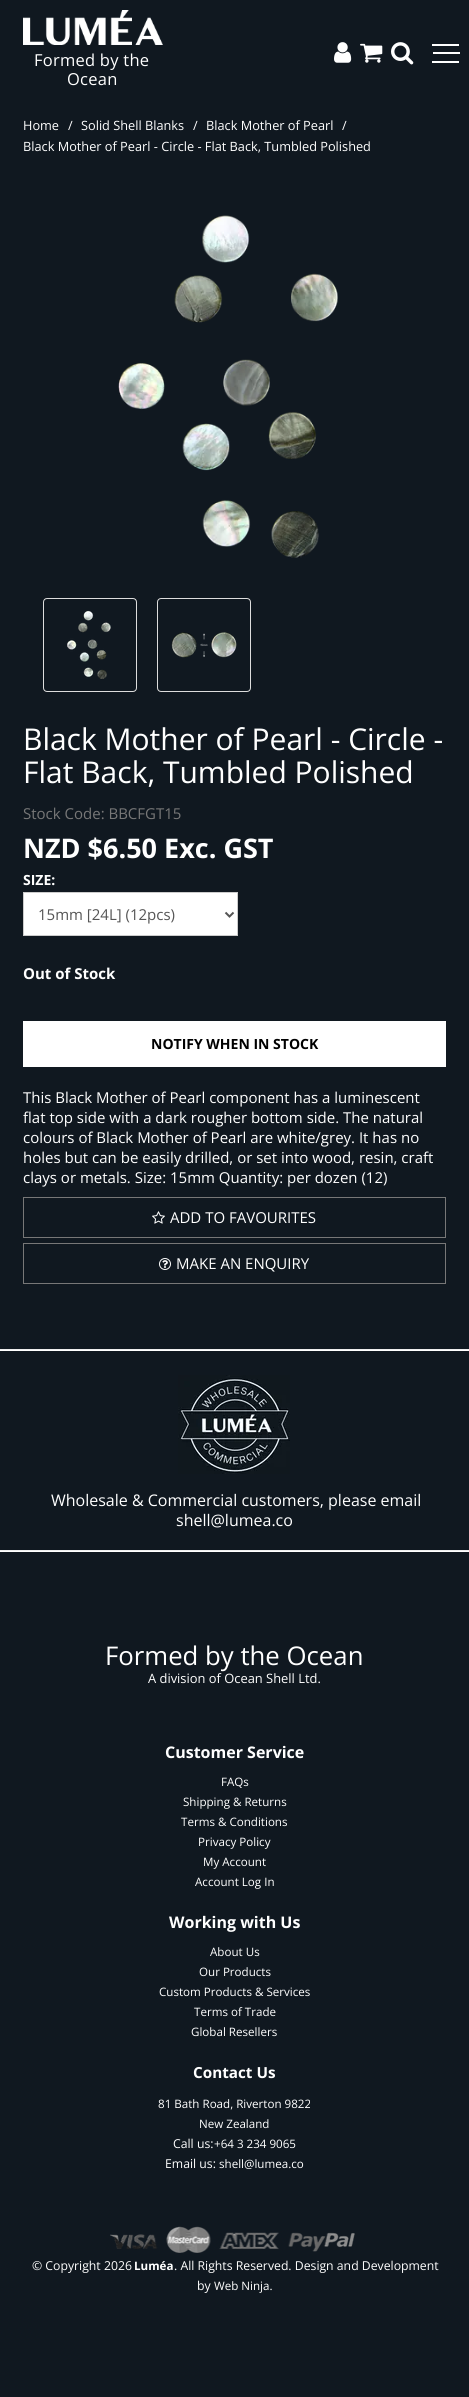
#include <cairo.h>
#include <math.h>
#include <stddef.h>

typedef struct { const char *family; double size; int italic, bold; unsigned color; } style_t;
static cairo_t *ctx;

static void ink(unsigned color) {
    cairo_set_source_rgb(ctx, (color >> 16) / 255.0, (color >> 8 & 255) / 255.0, (color & 255) / 255.0);
}

static void write(double x, double y, const char *s, const style_t *st) {
    cairo_select_font_face(ctx, st->family, st->italic ? CAIRO_FONT_SLANT_ITALIC : CAIRO_FONT_SLANT_NORMAL,
        st->bold ? CAIRO_FONT_WEIGHT_BOLD : CAIRO_FONT_WEIGHT_NORMAL);
    cairo_set_font_size(ctx, st->size);
    ink(st->color);
    cairo_move_to(ctx, x, y);
    cairo_show_text(ctx, s);
}

static void write_spaced(double x, double y, const char *s, double letter, double word) {
    cairo_move_to(ctx, x, y);
    while (*s) {
        char ch[5] = {0};
        int n = 0;
        do ch[n++] = *s++; while ((*s & 0xC0) == 0x80);
        cairo_show_text(ctx, ch);
        cairo_rel_move_to(ctx, letter + word * (*ch == ' '), 0);
    }
}

static void block(double x, double y, double w, double h, unsigned color) {
    ink(color);
    cairo_rectangle(ctx, x, y, w, h);
    cairo_fill(ctx);
}

static void round_path(double x, double y, double w, double h, double r) {
    cairo_new_sub_path(ctx);
    cairo_arc(ctx, x + w - r, y + h - r, r, 0, M_PI / 2);
    cairo_arc(ctx, x + r, y + h - r, r, M_PI / 2, M_PI);
    cairo_arc(ctx, x + r, y + r, r, M_PI, 1.5 * M_PI);
    cairo_arc(ctx, x + w - r, y + r, r, 1.5 * M_PI, 2 * M_PI);
    cairo_close_path(ctx);
}

static void paste(const char *path, double x, double y, double w, double h) {
    cairo_surface_t *image = cairo_image_surface_create_from_png(path);
    cairo_save(ctx);
    cairo_set_source_surface(ctx, image, x, y);
    cairo_rectangle(ctx, x, y, w, h);
    cairo_fill(ctx);
    cairo_restore(ctx);
    cairo_surface_destroy(image);
}

static const style_t s1 = {"Open Sans", 12.75, 0, 0, 0xffffff};
static const style_t s2 = {"Open Sans", 30, 0, 0, 0xffffff};
static const style_t s3 = {"Open Sans", 15, 0, 0, 0x777777};
static const style_t s4 = {"Open Sans", 27, 0, 1, 0xffffff};
static const style_t s5 = {"Open Sans", 14, 0, 1, 0xffffff};
static const style_t s6 = {"Open Sans", 15, 0, 0, 0x555555};
static const style_t s7 = {"Open Sans", 15, 0, 1, 0xffffff};
static const style_t s8 = {"Open Sans", 14, 0, 1, 0x000000};
static const style_t s9 = {"Open Sans", 15, 0, 0, 0xffffff};
static const style_t s10 = {"Open Sans", 16, 0, 0, 0xffffff};
static const style_t s11 = {"Open Sans", 25.75, 0, 0, 0xffffff};
static const style_t s12 = {"Open Sans", 12.9, 0, 0, 0xffffff};
static const style_t s13 = {"Open Sans", 16, 0, 1, 0xffffff};
static const style_t s14 = {"Open Sans", 11.6, 0, 0, 0xffffff};
static const style_t s15 = {"Open Sans", 15.25, 0, 1, 0xffffff};
static const style_t s16 = {"Open Sans", 12.25, 0, 0, 0xffffff};
static const style_t s17 = {"Open Sans", 11.6, 0, 1, 0xffffff};

int main(void) {
    cairo_surface_t *surface = cairo_image_surface_create(CAIRO_FORMAT_RGB24, 469, 2397);
    ctx = cairo_create(surface);
    cairo_font_options_t *options = cairo_font_options_create();
    cairo_font_options_set_hint_metrics(options, CAIRO_HINT_METRICS_OFF);
    cairo_font_options_set_hint_style(options, CAIRO_HINT_STYLE_NONE);
    cairo_set_font_options(ctx, options);
    cairo_set_miter_limit(ctx, 4);
    ink(0x101820);
    cairo_paint(ctx);
    paste("pic1.png", 23, 10, 140, 35);
    cairo_select_font_face(ctx, "Open Sans", CAIRO_FONT_SLANT_NORMAL, CAIRO_FONT_WEIGHT_NORMAL);
    cairo_set_font_size(ctx, 16.5);
    ink(0xffffff);
    write_spaced(34, 66, "Formed by the", 0.25, 0);
    write_spaced(67, 85, "Ocean", 0.25, 0);
    paste("pic2.png", 334, 42, 18, 21);
    paste("pic3.png", 360, 43, 23, 20);
    paste("pic4.png", 391, 42, 23, 23);
    block(432, 44, 27, 2, 0xffffff);
    block(433, 52, 27, 2, 0xffffff);
    block(432, 61, 27, 2, 0xffffff);
    write(23, 130, "Home", &s1);
    write(68, 130, "/", &s1);
    write(81, 130, "Solid Shell Blanks", &s1);
    write(193, 130, "/", &s1);
    write(206, 130, "Black Mother of Pearl", &s1);
    write(342, 130, "/", &s1);
    write(23, 151, "Black Mother of Pearl - Circle - Flat Back, Tumbled Polished", &s1);
    paste("pic5.png", 118, 215, 220, 343);
    round_path(43.5, 598.5, 93, 93, 3.5);
    ink(0xdddddd);
    cairo_set_line_width(ctx, 1);
    cairo_stroke(ctx);
    paste("pic6.png", 67, 610, 44, 69);
    round_path(157.5, 598.5, 93, 93, 3.5);
    cairo_stroke(ctx);
    paste("pic7.png", 171, 632, 66, 26);
    write(23, 750, "Black Mother of Pearl - Circle -", &s2);
    write(23, 783, "Flat Back, Tumbled Polished", &s2);
    write(23, 819, "Stock Code: BBCFGT15", &s3);
    write(23, 858, "NZD $6.50 Exc. GST", &s4);
    write(23, 885, "SIZE:", &s5);
    cairo_rectangle(ctx, 23.5, 892.5, 214, 43);
    cairo_fill_preserve(ctx);
    ink(0xcccccc);
    cairo_stroke(ctx);
    cairo_new_path(ctx);
    cairo_move_to(ctx, 225.5, 912.5);
    cairo_line_to(ctx, 229.5, 916.5);
    cairo_line_to(ctx, 233.5, 912.5);
    ink(0x555555);
    cairo_set_line_width(ctx, 2);
    cairo_stroke(ctx);
    write(38, 920, "15mm [24L] (12pcs)", &s6);
    write(23, 979, "Out of Stock", &s7);
    block(23, 1021, 423, 46, 0xffffff);
    write(151, 1049, "NOTIFY WHEN IN STOCK", &s8);
    write(23, 1103, "This Black Mother of Pearl component has a luminescent", &s9);
    write(23, 1123, "flat top side with a dark rougher bottom side. The natural", &s9);
    write(23, 1143, "colours of Black Mother of Pearl are white/grey. It has no", &s9);
    write(23, 1163, "holes but can be easily drilled, or set into wood, resin, craft", &s9);
    write(23, 1183, "clays or metals. Size: 15mm Quantity: per dozen (12)", &s9);
    cairo_rectangle(ctx, 23.5, 1197.5, 422, 40);
    ink(0x777777);
    cairo_set_line_width(ctx, 1);
    cairo_stroke(ctx);
    paste("pic8.png", 152, 1211, 13, 13);
    write(170, 1223, "ADD TO FAVOURITES", &s9);
    cairo_rectangle(ctx, 23.5, 1243.5, 422, 40);
    ink(0x777777);
    cairo_stroke(ctx);
    paste("pic9.png", 159, 1258, 12, 12);
    write(176, 1269, "MAKE AN ENQUIRY", &s9);
    block(0, 1349, 469, 1, 0xeeeeee);
    block(0, 1350, 469, 1, 0xffffff);
    paste("pic10.png", 178, 1375, 112, 99);
    write(51, 1506, "Wholesale & Commercial customers, please email", &s10);
    write(176, 1526, "shell@lumea.co", &s10);
    block(0, 1550, 469, 1, 0xeeeeee);
    block(0, 1551, 469, 1, 0xffffff);
    write(105, 1665, "Formed by the Ocean", &s11);
    write(148, 1683, "A division of Ocean Shell Ltd.", &s12);
    write(165, 1758, "Customer Service", &s13);
    write(221, 1786, "FAQs", &s14);
    write(183, 1806, "Shipping & Returns", &s14);
    write(181, 1826, "Terms & Conditions", &s14);
    write(198, 1846, "Privacy Policy", &s14);
    write(203, 1866, "My Account", &s14);
    write(195, 1886, "Account Log In", &s14);
    write(169, 1928, "Working with Us", &s13);
    write(210, 1956, "About Us", &s14);
    write(199, 1976, "Our Products", &s14);
    write(159, 1996, "Custom Products & Services", &s14);
    write(194, 2016, "Terms of Trade", &s14);
    write(191, 2036, "Global Resellers", &s14);
    write(193, 2078, "Contact Us", &s15);
    write(158, 2108, "81 Bath Road, Riverton 9822", &s14);
    write(199, 2128, "New Zealand", &s14);
    write(173, 2148, "Call us:", &s16);
    write(214, 2148, "+64 3 234 9065", &s14);
    write(165, 2168, "Email us:", &s16);
    write(219, 2168, "shell@lumea.co", &s14);
    paste("pic11.png", 110, 2226, 245, 27);
    write(32, 2270, "© Copyright 2026", &s16);
    write(134, 2270, "Luméa", &s17);
    write(174, 2270, ". All Rights Reserved. Design and Development", &s16);
    write(197, 2290, "by", &s16);
    write(214, 2290, "Web Ninja.", &s14);
    cairo_surface_write_to_png(surface, "screenshot.png");
    cairo_font_options_destroy(options);
    cairo_destroy(ctx);
    cairo_surface_destroy(surface);
    return 0;
}
